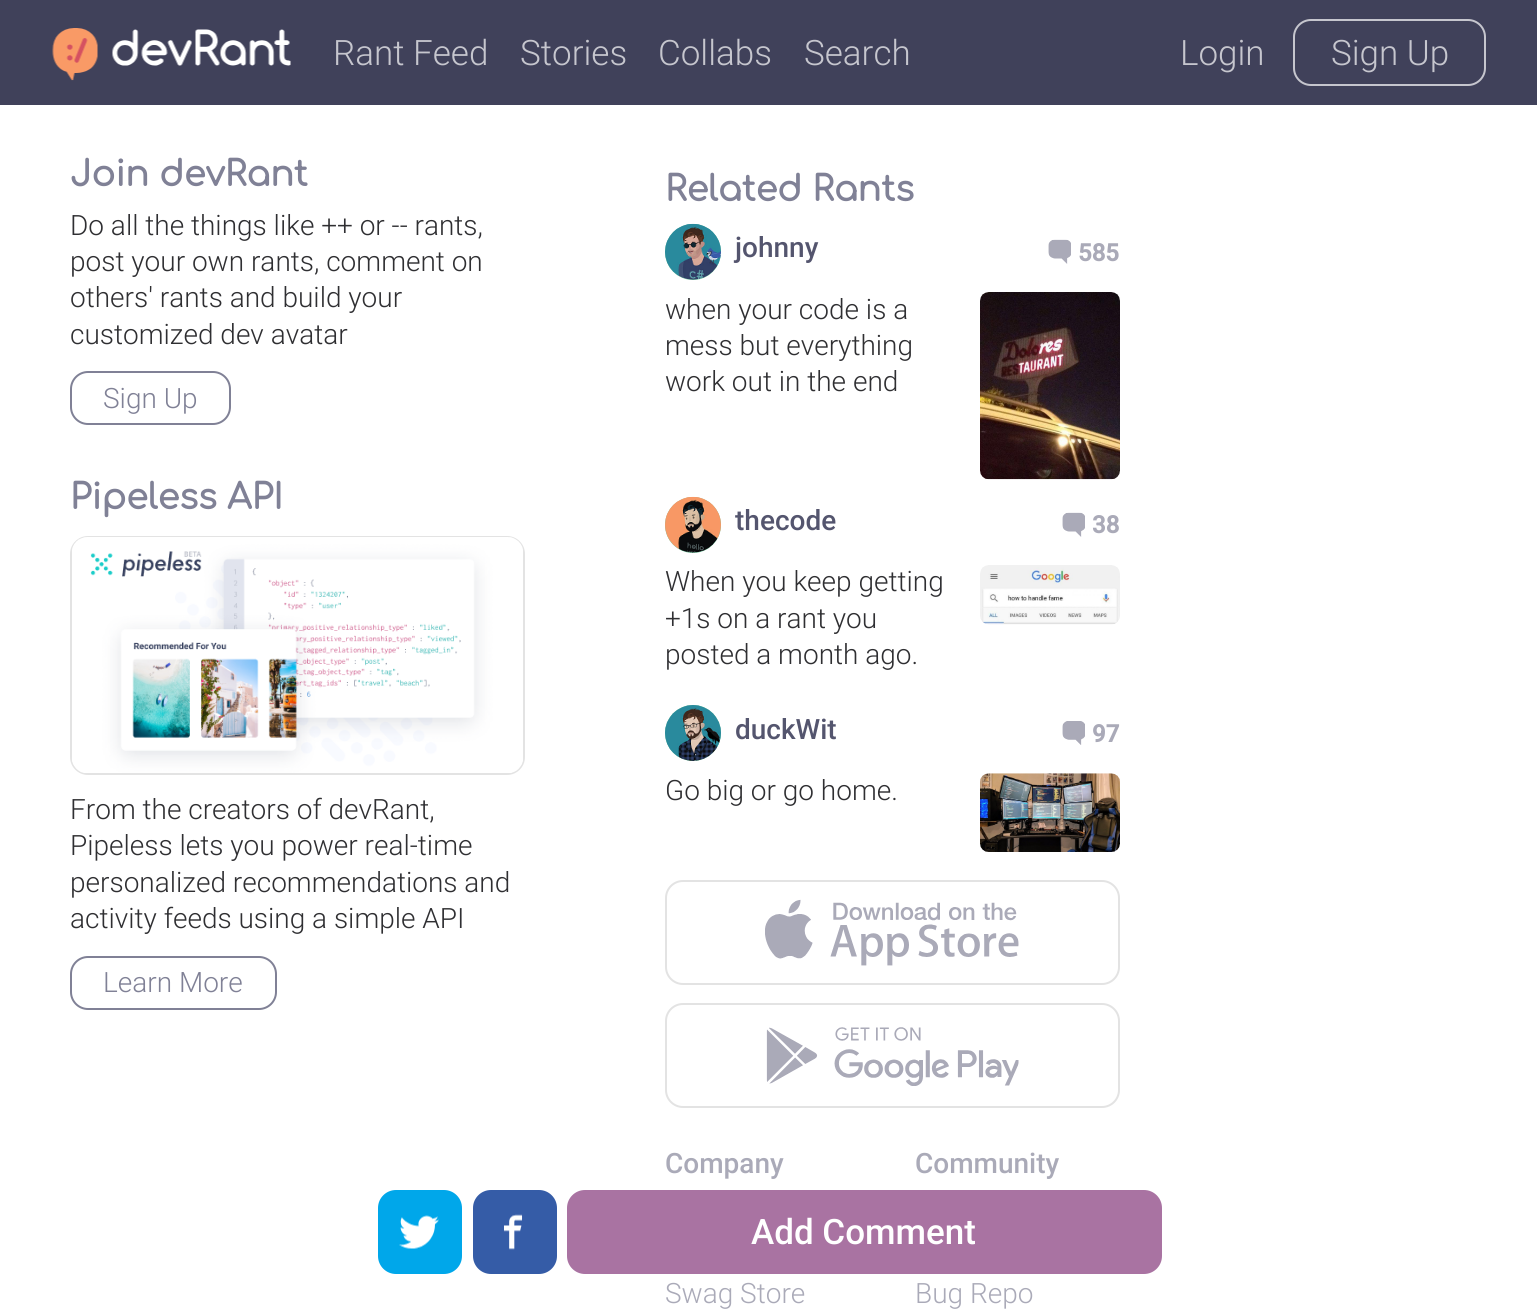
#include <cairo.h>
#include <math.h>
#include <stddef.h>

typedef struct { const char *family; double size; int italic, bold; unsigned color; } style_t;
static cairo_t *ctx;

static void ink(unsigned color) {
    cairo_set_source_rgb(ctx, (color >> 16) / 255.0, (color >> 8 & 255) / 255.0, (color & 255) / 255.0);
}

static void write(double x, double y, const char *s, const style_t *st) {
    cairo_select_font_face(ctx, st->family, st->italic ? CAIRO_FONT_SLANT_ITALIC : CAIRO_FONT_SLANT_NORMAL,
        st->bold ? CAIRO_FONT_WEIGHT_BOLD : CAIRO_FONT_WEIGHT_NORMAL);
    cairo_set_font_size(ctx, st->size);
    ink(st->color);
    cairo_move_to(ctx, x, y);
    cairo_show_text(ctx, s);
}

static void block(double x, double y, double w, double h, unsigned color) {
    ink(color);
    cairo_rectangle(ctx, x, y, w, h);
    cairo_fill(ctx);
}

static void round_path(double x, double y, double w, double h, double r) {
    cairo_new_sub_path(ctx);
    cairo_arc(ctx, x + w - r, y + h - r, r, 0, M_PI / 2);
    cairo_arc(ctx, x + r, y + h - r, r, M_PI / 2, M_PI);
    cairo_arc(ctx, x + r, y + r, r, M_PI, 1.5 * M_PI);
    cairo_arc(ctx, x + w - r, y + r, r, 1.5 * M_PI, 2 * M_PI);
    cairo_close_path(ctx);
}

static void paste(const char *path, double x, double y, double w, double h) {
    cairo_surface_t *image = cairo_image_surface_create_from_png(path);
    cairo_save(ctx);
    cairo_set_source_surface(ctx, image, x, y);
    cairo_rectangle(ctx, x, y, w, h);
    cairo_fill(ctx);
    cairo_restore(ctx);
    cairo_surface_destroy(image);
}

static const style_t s1 = {"Roboto Light", 35, 0, 0, 0xc6c6ce};
static const style_t s2 = {"Comfortaa", 35, 0, 1, 0x808196};
static const style_t s3 = {"Roboto Light", 28, 0, 0, 0x2f2f32};
static const style_t s4 = {"Roboto Light", 28, 0, 0, 0x808196};
static const style_t s5 = {"Roboto Medium", 28, 0, 0, 0x54556e};
static const style_t s6 = {"Roboto", 24, 0, 1, 0xaaaab8};
static const style_t s7 = {"Roboto Medium", 28, 0, 0, 0xaaaab8};
static const style_t s8 = {"Roboto Light", 28, 0, 0, 0xaaaab8};
static const style_t s9 = {"Roboto Medium", 35, 0, 0, 0xffffff};

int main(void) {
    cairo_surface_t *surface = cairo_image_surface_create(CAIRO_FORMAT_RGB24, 1537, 1309);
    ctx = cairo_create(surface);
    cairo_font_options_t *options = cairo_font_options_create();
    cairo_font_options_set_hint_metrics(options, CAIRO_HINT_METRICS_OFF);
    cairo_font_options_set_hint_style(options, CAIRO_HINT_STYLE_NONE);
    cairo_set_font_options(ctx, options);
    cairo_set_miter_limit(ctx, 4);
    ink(0xffffff);
    cairo_paint(ctx);
    block(0, 0, 1537, 105, 0x40415a);
    paste("pic1.png", 52, 28, 46, 53);
    paste("pic2.png", 66, 38, 22, 25);
    paste("pic3.png", 112, 29, 179, 37);
    write(333, 65, "Rant Feed", &s1);
    write(520, 65, "Stories", &s1);
    write(658, 65, "Collabs", &s1);
    write(804, 65, "Search", &s1);
    write(1180, 65, "Login", &s1);
    round_path(1294, 20, 191, 65, 17);
    cairo_stroke(ctx);
    write(1331, 65, "Sign Up", &s1);
    write(70, 186, "Join devRant", &s2);
    write(70, 235, "Do all the things like ++ or -- rants,", &s3);
    write(70, 271, "post your own rants, comment on", &s3);
    write(70, 307, "others' rants and build your", &s3);
    write(70, 344, "customized dev avatar", &s3);
    round_path(71, 372, 159, 52, 17);
    ink(0x808196);
    cairo_stroke(ctx);
    write(103, 408, "Sign Up", &s4);
    write(70, 509, "Pipeless API", &s2);
    round_path(71, 537, 453, 237, 17);
    ink(0xe3e3e3);
    cairo_stroke(ctx);
    paste("pic4.png", 72, 537, 451, 236);
    write(70, 819, "From the creators of devRant,", &s3);
    write(70, 855, "Pipeless lets you power real-time", &s3);
    write(70, 892, "personalized recommendations and", &s3);
    write(70, 928, "activity feeds using a simple API", &s3);
    round_path(71, 957, 205, 52, 17);
    ink(0x808196);
    cairo_stroke(ctx);
    write(103, 992, "Learn More", &s4);
    write(665, 201, "Related Rants", &s2);
    ink(0x7bc8a4);
    cairo_new_path(ctx);
    cairo_arc(ctx, 693, 252, 28, 0, 2 * M_PI);
    cairo_fill(ctx);
    paste("pic5.png", 665, 223, 56, 57);
    write(735, 257, "johnny", &s5);
    paste("pic6.png", 1048, 239, 23, 25);
    write(1078, 261, "585", &s6);
    write(665, 319, "when your code is a", &s3);
    paste("pic7.png", 980, 292, 140, 188);
    write(665, 355, "mess but everything", &s3);
    write(665, 391, "work out in the end", &s3);
    ink(0x7bc8a4);
    cairo_new_path(ctx);
    cairo_arc(ctx, 693, 525, 28, 0, 2 * M_PI);
    cairo_fill(ctx);
    paste("pic8.png", 665, 496, 56, 57);
    write(735, 530, "thecode", &s5);
    paste("pic6.png", 1062, 512, 23, 25);
    write(1092, 533, "38", &s6);
    write(665, 591, "When you keep getting", &s3);
    paste("pic9.png", 980, 565, 140, 60);
    write(665, 628, "+1s on a rant you", &s3);
    write(665, 664, "posted a month ago.", &s3);
    ink(0x7bc8a4);
    cairo_new_path(ctx);
    cairo_arc(ctx, 693, 733, 28, 0, 2 * M_PI);
    cairo_fill(ctx);
    paste("pic10.png", 665, 705, 56, 56);
    write(735, 739, "duckWit", &s5);
    paste("pic11.png", 1062, 721, 23, 24);
    write(1092, 742, "97", &s6);
    write(665, 800, "Go big or go home.", &s3);
    paste("pic12.png", 980, 773, 140, 79);
    round_path(666, 881, 453, 103, 17);
    ink(0xe3e3e3);
    cairo_stroke(ctx);
    paste("pic13.png", 765, 899, 254, 67);
    round_path(666, 1004, 453, 103, 17);
    cairo_stroke(ctx);
    paste("pic14.png", 766, 1027, 253, 59);
    write(665, 1173, "Company", &s7);
    write(665, 1303, "Swag Store", &s8);
    write(915, 1173, "Community", &s7);
    write(915, 1303, "Bug Repo", &s8);
    ink(0x00a7ea);
    round_path(378, 1190, 84, 84, 18);
    cairo_fill(ctx);
    paste("pic15.png", 399, 1215, 40, 34);
    ink(0x355ca7);
    round_path(473, 1190, 84, 84, 18);
    cairo_fill(ctx);
    paste("pic16.png", 504, 1214, 19, 36);
    ink(0xa973a2);
    round_path(567, 1190, 595, 84, 18);
    cairo_fill(ctx);
    write(751, 1244, "Add Comment", &s9);
    cairo_surface_write_to_png(surface, "screenshot.png");
    cairo_font_options_destroy(options);
    cairo_destroy(ctx);
    cairo_surface_destroy(surface);
    return 0;
}
